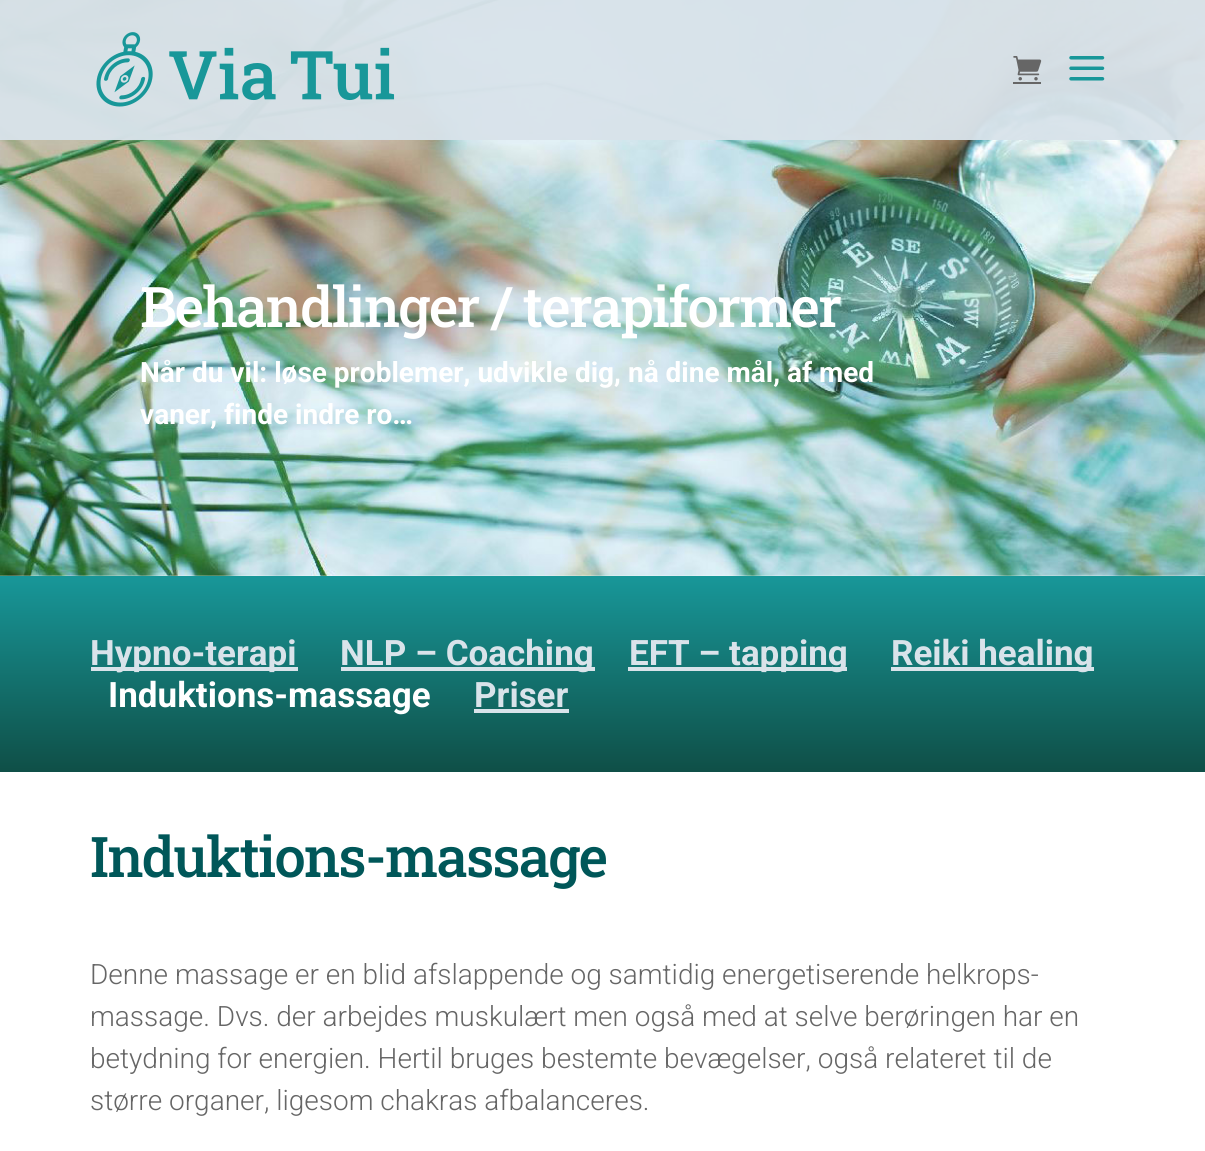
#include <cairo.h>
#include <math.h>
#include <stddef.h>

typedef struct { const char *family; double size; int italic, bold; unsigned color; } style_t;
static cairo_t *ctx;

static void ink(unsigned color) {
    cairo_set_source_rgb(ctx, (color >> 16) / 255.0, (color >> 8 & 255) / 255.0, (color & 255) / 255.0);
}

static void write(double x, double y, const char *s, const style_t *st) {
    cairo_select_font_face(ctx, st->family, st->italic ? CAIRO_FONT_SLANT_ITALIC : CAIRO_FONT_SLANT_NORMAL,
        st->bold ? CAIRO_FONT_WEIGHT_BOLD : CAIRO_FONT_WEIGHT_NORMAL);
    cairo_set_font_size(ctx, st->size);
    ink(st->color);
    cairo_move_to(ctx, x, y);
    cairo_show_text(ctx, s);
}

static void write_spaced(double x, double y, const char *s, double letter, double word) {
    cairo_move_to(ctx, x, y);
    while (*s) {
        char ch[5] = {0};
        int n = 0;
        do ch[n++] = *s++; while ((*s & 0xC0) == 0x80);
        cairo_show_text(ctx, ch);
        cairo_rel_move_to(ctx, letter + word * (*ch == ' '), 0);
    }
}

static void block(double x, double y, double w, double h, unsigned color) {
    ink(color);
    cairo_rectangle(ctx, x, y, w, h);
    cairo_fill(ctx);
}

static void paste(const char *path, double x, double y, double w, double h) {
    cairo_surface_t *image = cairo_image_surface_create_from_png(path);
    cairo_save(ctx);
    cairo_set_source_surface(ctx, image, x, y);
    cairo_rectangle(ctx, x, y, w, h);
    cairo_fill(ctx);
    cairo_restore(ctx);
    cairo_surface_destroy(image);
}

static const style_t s1 = {"Roboto", 28, 0, 1, 0xffffff};
static const style_t s2 = {"Roboto", 35, 0, 1, 0xd9e3ea};
static const style_t s3 = {"Roboto", 35, 0, 1, 0xffffff};
static const style_t s4 = {"Roboto Light", 28, 0, 0, 0x666666};

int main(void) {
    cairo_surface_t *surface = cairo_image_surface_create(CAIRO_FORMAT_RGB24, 1205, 1151);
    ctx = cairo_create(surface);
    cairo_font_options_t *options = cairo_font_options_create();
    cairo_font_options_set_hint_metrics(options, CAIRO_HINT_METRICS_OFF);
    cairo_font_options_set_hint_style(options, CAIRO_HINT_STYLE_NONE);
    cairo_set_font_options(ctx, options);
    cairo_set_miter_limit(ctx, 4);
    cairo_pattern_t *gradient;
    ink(0xffffff);
    cairo_paint(ctx);
    paste("pic4.png", 0, 0, 1205, 576);
    cairo_set_source_rgba(ctx, 0.851, 0.89, 0.918, 0.95);
    cairo_rectangle(ctx, 0, 0, 1205, 140);
    cairo_fill(ctx);
    paste("pic1.png", 96, 32, 299, 75);
    paste("pic2.png", 1013, 56, 29, 25);
    block(1013, 82, 28, 2, 0x666666);
    paste("pic3.png", 1069, 56, 36, 25);
    cairo_select_font_face(ctx, "Roboto Slab Medium", CAIRO_FONT_SLANT_NORMAL, CAIRO_FONT_WEIGHT_NORMAL);
    cairo_set_font_size(ctx, 56);
    ink(0xffffff);
    write_spaced(140, 327, "Behandlinger / terapiformer", -1.75, 0);
    write(140, 382, "Når du vil: løse problemer, udvikle dig, nå dine mål, af med", &s1);
    write(140, 424, "vaner, finde indre ro…", &s1);
    gradient = cairo_pattern_create_linear(603, 576, 603, 772);
    cairo_pattern_add_color_stop_rgba(gradient, 0, 0.094, 0.592, 0.6, 1);
    cairo_pattern_add_color_stop_rgba(gradient, 1, 0.059, 0.31, 0.278, 1);
    cairo_set_source(ctx, gradient);
    cairo_pattern_destroy(gradient);
    cairo_rectangle(ctx, 0, 576, 1205, 196);
    cairo_fill(ctx);
    block(91, 667, 207, 4, 0xd9e3ea);
    write(90, 665, "Hypno-terapi", &s2);
    block(341, 667, 254, 4, 0xd9e3ea);
    write(340, 665, "NLP – Coaching", &s2);
    block(628, 667, 219, 4, 0xd9e3ea);
    write(629, 665, "EFT – tapping", &s2);
    block(891, 667, 203, 4, 0xd9e3ea);
    write(891, 665, "Reiki healing", &s2);
    write(108, 707, "Induktions-massage", &s3);
    write(474, 707, "Priser", &s2);
    block(474, 709, 95, 4, 0xd9e3ea);
    cairo_select_font_face(ctx, "Roboto Slab Medium", CAIRO_FONT_SLANT_NORMAL, CAIRO_FONT_WEIGHT_NORMAL);
    cairo_set_font_size(ctx, 56);
    ink(0x005759);
    write_spaced(90, 877, "Induktions-massage", -1.75, 0);
    write(90, 984, "Denne massage er en blid afslappende og samtidig energetiserende helkrops-", &s4);
    write(90, 1026, "massage. Dvs. der arbejdes muskulært men også med at selve berøringen har en", &s4);
    write(90, 1068, "betydning for energien. Hertil bruges bestemte bevægelser, også relateret til de", &s4);
    write(90, 1110, "større organer, ligesom chakras afbalanceres.", &s4);
    cairo_surface_write_to_png(surface, "screenshot.png");
    cairo_font_options_destroy(options);
    cairo_destroy(ctx);
    cairo_surface_destroy(surface);
    return 0;
}
